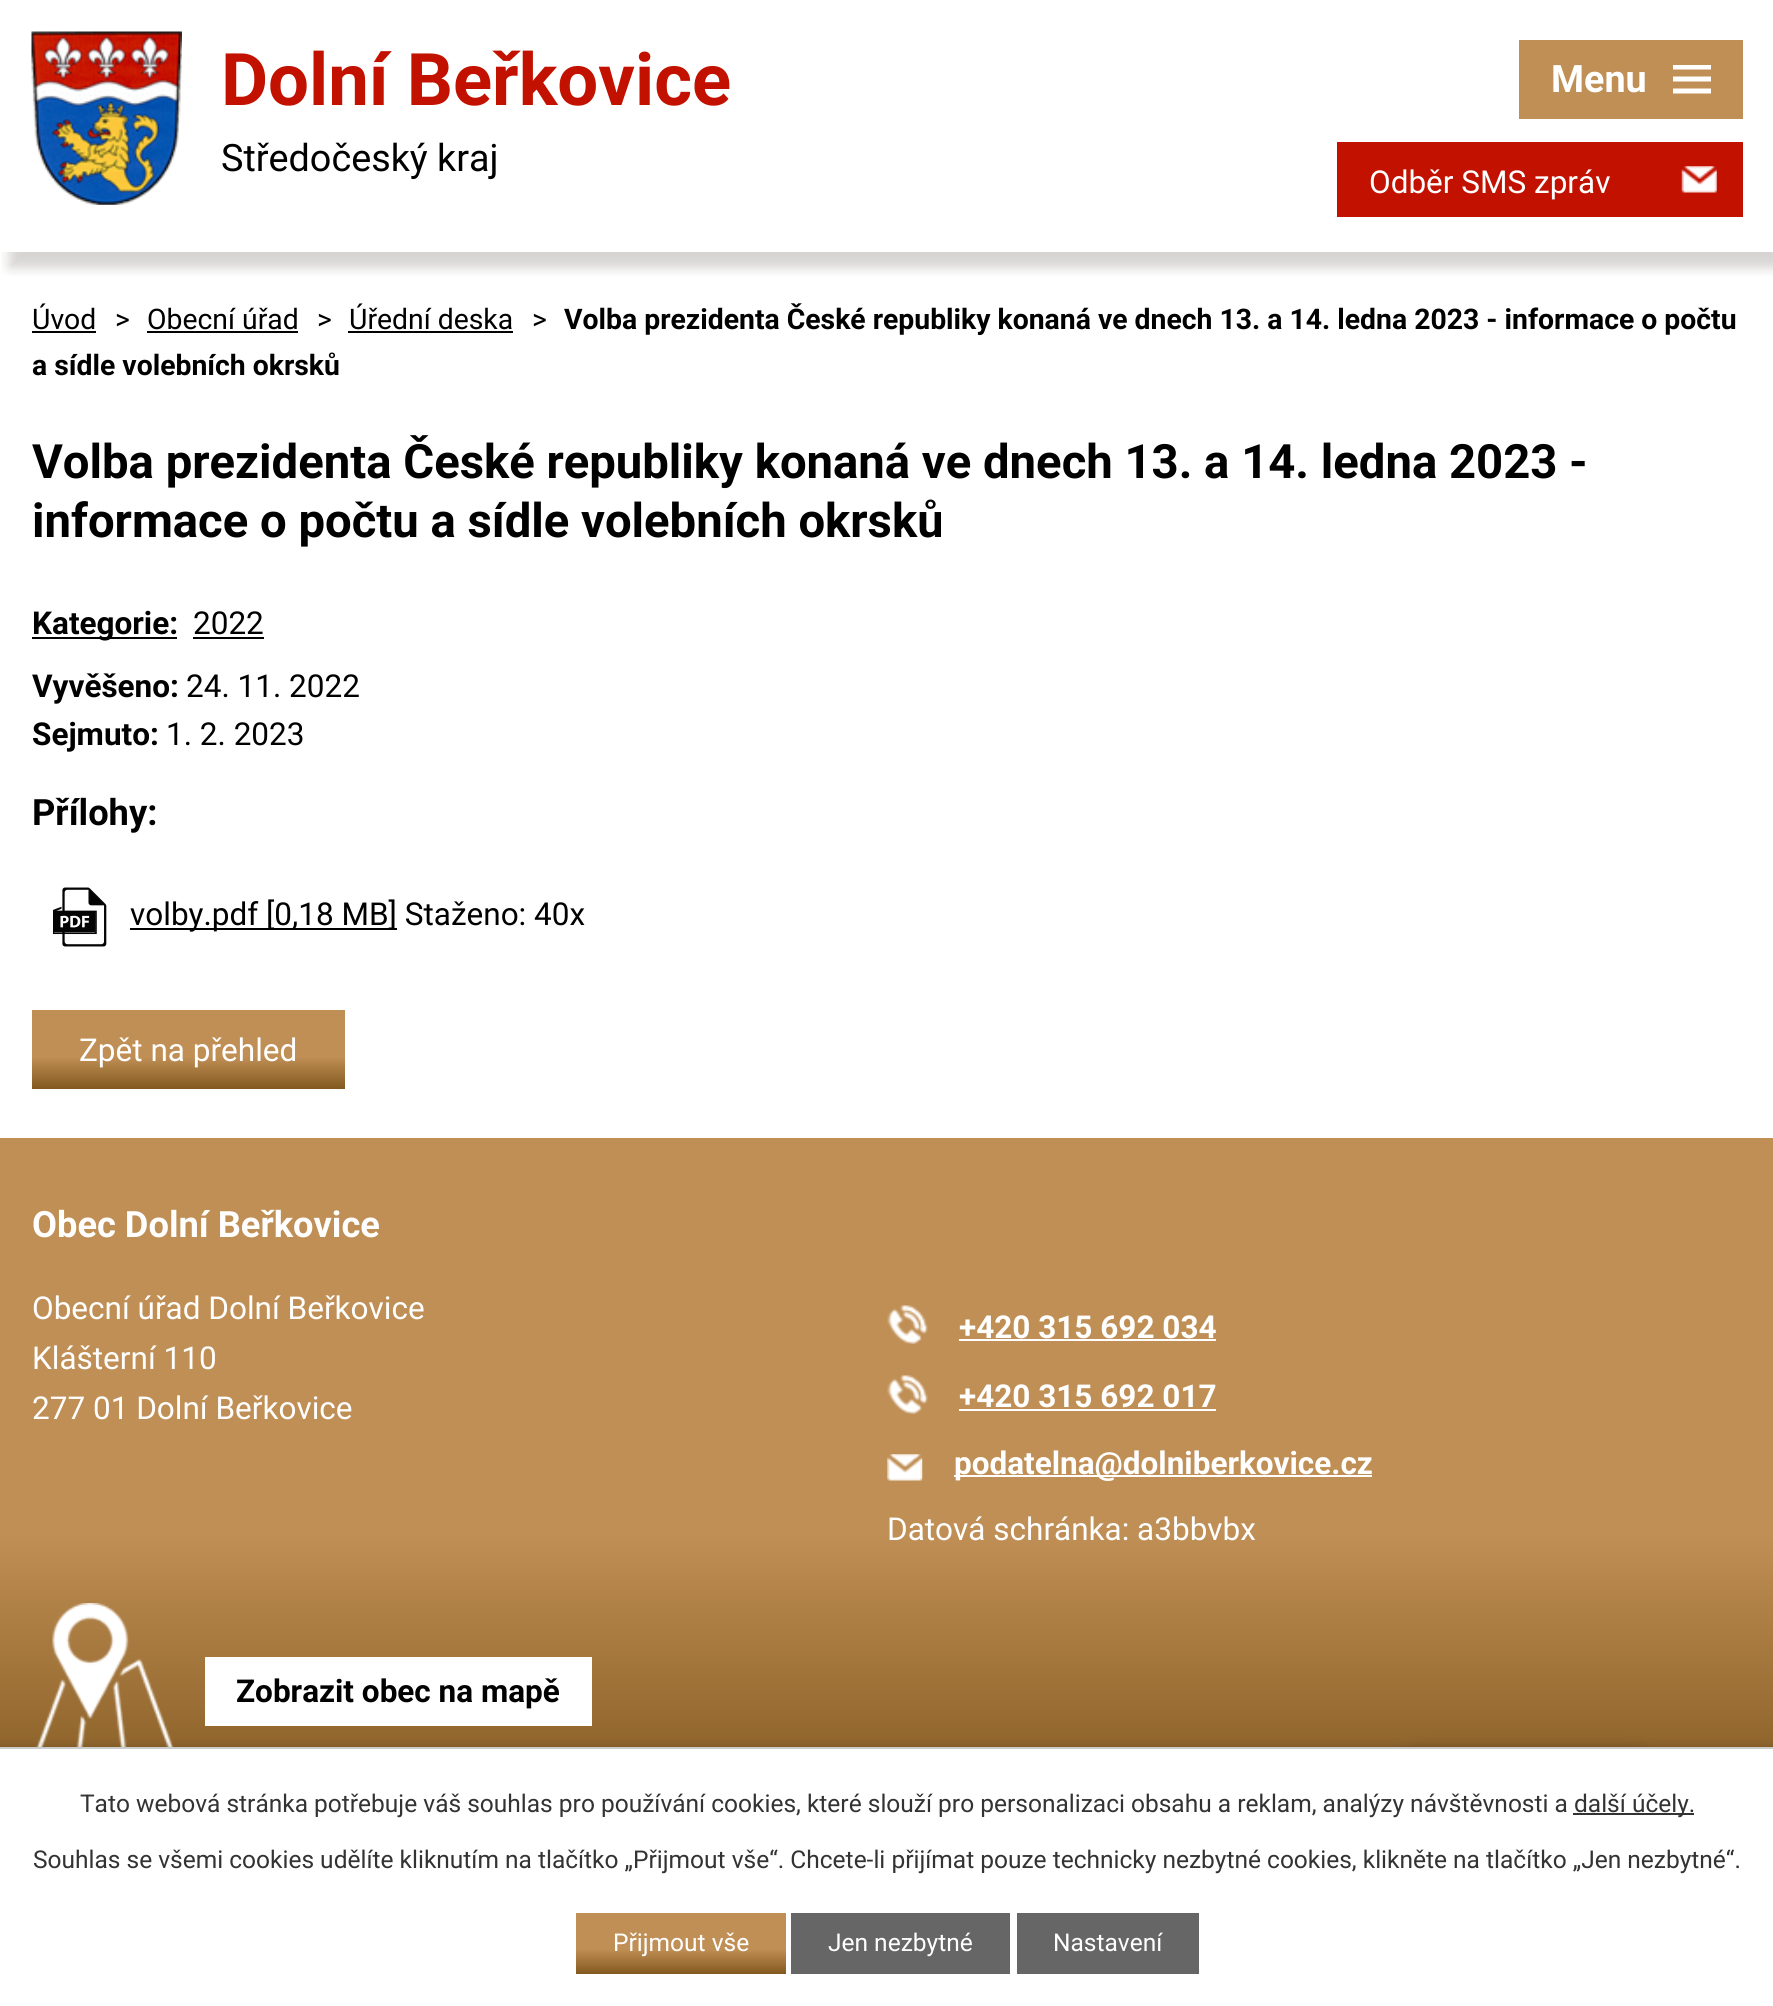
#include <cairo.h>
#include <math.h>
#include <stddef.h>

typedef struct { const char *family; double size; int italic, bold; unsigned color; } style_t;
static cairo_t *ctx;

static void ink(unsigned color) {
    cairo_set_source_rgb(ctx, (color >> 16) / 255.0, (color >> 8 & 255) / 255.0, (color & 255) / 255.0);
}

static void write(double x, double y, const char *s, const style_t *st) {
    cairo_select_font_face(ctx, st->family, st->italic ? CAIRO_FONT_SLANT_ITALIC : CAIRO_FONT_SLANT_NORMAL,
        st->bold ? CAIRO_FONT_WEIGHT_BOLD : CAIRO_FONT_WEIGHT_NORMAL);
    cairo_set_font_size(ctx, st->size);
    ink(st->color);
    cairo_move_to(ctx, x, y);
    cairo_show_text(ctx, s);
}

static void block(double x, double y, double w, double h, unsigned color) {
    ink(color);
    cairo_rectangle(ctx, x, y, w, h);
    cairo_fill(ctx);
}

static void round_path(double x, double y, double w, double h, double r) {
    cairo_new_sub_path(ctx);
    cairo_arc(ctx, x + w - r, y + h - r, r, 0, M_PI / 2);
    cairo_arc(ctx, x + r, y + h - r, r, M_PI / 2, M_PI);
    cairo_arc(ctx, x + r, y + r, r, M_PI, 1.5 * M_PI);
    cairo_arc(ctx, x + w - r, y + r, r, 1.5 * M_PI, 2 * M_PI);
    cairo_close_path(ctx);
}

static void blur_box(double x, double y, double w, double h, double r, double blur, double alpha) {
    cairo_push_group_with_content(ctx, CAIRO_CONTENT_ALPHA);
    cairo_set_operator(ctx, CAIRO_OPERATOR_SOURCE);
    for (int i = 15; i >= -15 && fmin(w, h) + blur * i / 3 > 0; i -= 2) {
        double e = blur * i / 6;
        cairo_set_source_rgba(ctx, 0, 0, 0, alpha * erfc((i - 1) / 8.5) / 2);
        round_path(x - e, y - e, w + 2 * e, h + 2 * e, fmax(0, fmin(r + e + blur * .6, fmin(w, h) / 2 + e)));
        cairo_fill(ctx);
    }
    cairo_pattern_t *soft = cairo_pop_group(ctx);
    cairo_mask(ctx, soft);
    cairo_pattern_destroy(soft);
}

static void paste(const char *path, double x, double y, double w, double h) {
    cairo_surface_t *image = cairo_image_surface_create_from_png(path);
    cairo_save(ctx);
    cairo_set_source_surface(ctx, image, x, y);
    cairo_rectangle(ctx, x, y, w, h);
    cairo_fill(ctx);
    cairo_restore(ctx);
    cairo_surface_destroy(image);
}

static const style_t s1 = {"Roboto", 72.5, 0, 1, 0xc31100};
static const style_t s2 = {"Roboto", 37.75, 0, 0, 0x000000};
static const style_t s3 = {"Roboto", 31.5, 0, 0, 0xffffff};
static const style_t s4 = {"Roboto", 37.75, 0, 1, 0xffffff};
static const style_t s5 = {"Roboto", 28.35, 0, 0, 0x000000};
static const style_t s6 = {"Roboto", 28.35, 0, 1, 0x000000};
static const style_t s7 = {"Roboto", 47.25, 0, 1, 0x000000};
static const style_t s8 = {"Roboto", 31.5, 0, 1, 0x000000};
static const style_t s9 = {"Roboto", 31.5, 0, 0, 0x000000};
static const style_t s10 = {"Roboto", 36.25, 0, 1, 0x000000};
static const style_t s11 = {"Roboto", 36.25, 0, 1, 0xffffff};
static const style_t s12 = {"Roboto", 31.5, 0, 1, 0xffffff};
static const style_t s13 = {"Roboto", 24.5, 0, 0, 0x333333};
static const style_t s14 = {"Roboto", 24.5, 0, 0, 0xffffff};

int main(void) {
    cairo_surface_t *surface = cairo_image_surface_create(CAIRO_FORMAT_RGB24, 1773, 2006);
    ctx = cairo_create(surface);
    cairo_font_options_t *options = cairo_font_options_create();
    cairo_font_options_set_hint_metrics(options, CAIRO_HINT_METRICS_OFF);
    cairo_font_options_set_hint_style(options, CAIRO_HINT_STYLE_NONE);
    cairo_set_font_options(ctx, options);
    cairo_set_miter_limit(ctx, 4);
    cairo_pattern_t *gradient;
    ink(0xffffff);
    cairo_paint(ctx);
    cairo_save(ctx);
    cairo_rectangle(ctx, 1, 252, 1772, 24);
    cairo_clip(ctx);
    ink(0x2f281e);
    blur_box(9, 16, 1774, 252, 0, 6, 0.2);
    cairo_restore(ctx);
    paste("pic1.png", 31, 31, 151, 174);
    write(221, 105, "Dolní Beřkovice", &s1);
    write(221, 171, "Středočeský kraj", &s2);
    block(1337, 142, 406, 75, 0xc31100);
    paste("pic2.png", 1681, 166, 36, 27);
    write(1369, 193, "Odběr SMS zpráv", &s3);
    block(1519, 40, 224, 79, 0xc08f55);
    write(1551, 92, "Menu", &s4);
    cairo_new_path(ctx);
    cairo_move_to(ctx, 1673, 93.5);
    cairo_line_to(ctx, 1673, 88.5);
    cairo_line_to(ctx, 1711, 88.5);
    cairo_line_to(ctx, 1711, 93.5);
    cairo_close_path(ctx);
    cairo_move_to(ctx, 1673, 65);
    cairo_line_to(ctx, 1711, 65);
    cairo_line_to(ctx, 1711, 69.5);
    cairo_line_to(ctx, 1673, 69.5);
    cairo_close_path(ctx);
    cairo_move_to(ctx, 1673, 81.5);
    cairo_line_to(ctx, 1673, 76.5);
    cairo_line_to(ctx, 1711, 76.5);
    cairo_line_to(ctx, 1711, 81.5);
    cairo_close_path(ctx);
    cairo_fill(ctx);
    write(32, 329, "Úvod", &s5);
    block(32, 331, 64, 2, 0x000000);
    write(115, 329, ">", &s5);
    write(147, 329, "Obecní úřad", &s5);
    block(147, 331, 151, 2, 0x000000);
    write(317, 329, ">", &s5);
    write(349, 329, "Úřední deska", &s5);
    block(348, 331, 165, 2, 0x000000);
    write(532, 329, ">", &s5);
    write(564, 329, "Volba prezidenta České republiky konaná ve dnech 13. a 14. ledna 2023 - informace o počtu", &s6);
    write(32, 375, "a sídle volebních okrsků", &s6);
    write(32, 478, "Volba prezidenta České republiky konaná ve dnech 13. a 14. ledna 2023 -", &s7);
    write(32, 537, "informace o počtu a sídle volebních okrsků", &s7);
    block(32, 637, 145, 2, 0x000000);
    write(32, 634, "Kategorie:", &s8);
    write(193, 634, "2022", &s9);
    block(193, 637, 71, 2, 0x000000);
    write(32, 697, "Vyvěšeno:", &s8);
    write(186, 697, "24. 11. 2022", &s9);
    write(32, 745, "Sejmuto:", &s8);
    write(166, 745, "1. 2. 2023", &s9);
    write(32, 825, "Přílohy:", &s10);
    paste("pic3.png", 53, 887, 54, 60);
    block(130, 928, 267, 2, 0x000000);
    write(130, 925, "volby.pdf [0,18 MB] Staženo: 40x", &s9);
    gradient = cairo_pattern_create_linear(188, 1010, 188, 1089);
    cairo_pattern_add_color_stop_rgba(gradient, 0.59, 0.753, 0.561, 0.333, 1);
    cairo_pattern_add_color_stop_rgba(gradient, 1, 0.51, 0.349, 0.125, 1);
    cairo_set_source(ctx, gradient);
    cairo_pattern_destroy(gradient);
    cairo_rectangle(ctx, 32, 1010, 313, 79);
    cairo_fill(ctx);
    write(79, 1061, "Zpět na přehled", &s3);
    gradient = cairo_pattern_create_linear(887, 1138, 887, 1810);
    cairo_pattern_add_color_stop_rgba(gradient, 0.59, 0.753, 0.561, 0.333, 1);
    cairo_pattern_add_color_stop_rgba(gradient, 1, 0.51, 0.349, 0.125, 1);
    cairo_set_source(ctx, gradient);
    cairo_pattern_destroy(gradient);
    cairo_rectangle(ctx, 0, 1138, 1773, 609);
    cairo_fill(ctx);
    ink(0x000000);
    blur_box(1381, 1752, 289, 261, 44, 9, 0.2);
    write(32, 1237, "Obec Dolní Beřkovice", &s11);
    write(32, 1319, "Obecní úřad Dolní Beřkovice", &s3);
    write(32, 1369, "Klášterní 110", &s3);
    write(32, 1419, "277 01 Dolní Beřkovice", &s3);
    paste("pic4.png", 887, 1305, 41, 39);
    write(959, 1338, "+420 315 692 034", &s12);
    block(959, 1339, 257, 2, 0xffffff);
    paste("pic4.png", 887, 1375, 41, 39);
    write(959, 1407, "+420 315 692 017", &s12);
    block(959, 1409, 257, 2, 0xffffff);
    paste("pic5.png", 887, 1454, 36, 27);
    block(954, 1475, 418, 2, 0xffffff);
    write(954, 1474, "podatelna@dolniberkovice.cz", &s12);
    write(887, 1540, "Datová schránka: a3bbvbx", &s3);
    paste("pic6.png", 36, 1603, 138, 144);
    block(205, 1657, 387, 69, 0xffffff);
    write(236, 1702, "Zobrazit obec na mapě", &s8);
    ink(0x000000);
    blur_box(0, 1747, 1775, 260, 0, 4.5, 0.2);
    block(0, 1749, 1773, 257, 0xffffff);
    block(0, 1747, 1773, 2, 0xcccccc);
    write(80, 1812, "Tato webová stránka potřebuje váš souhlas pro používání cookies, které slouží pro personalizaci obsahu a reklam, analýzy návštěvnosti a", &s13);
    block(1573, 1813, 121, 2, 0x333333);
    write(1574, 1812, "další účely.", &s13);
    write(33, 1868, "Souhlas se všemi cookies udělíte kliknutím na tlačítko „Přijmout vše“. Chcete-li přijímat pouze technicky nezbytné cookies, klikněte na tlačítko „Jen nezbytné“.", &s13);
    gradient = cairo_pattern_create_linear(681, 1913, 681, 1974);
    cairo_pattern_add_color_stop_rgba(gradient, 0.59, 0.753, 0.561, 0.333, 1);
    cairo_pattern_add_color_stop_rgba(gradient, 1, 0.51, 0.349, 0.125, 1);
    cairo_set_source(ctx, gradient);
    cairo_pattern_destroy(gradient);
    cairo_rectangle(ctx, 576, 1913, 210, 61);
    cairo_fill(ctx);
    write(613, 1951, "Přijmout vše", &s14);
    block(791, 1913, 219, 61, 0x666666);
    write(828, 1951, "Jen nezbytné", &s14);
    block(1017, 1913, 182, 61, 0x666666);
    write(1053, 1951, "Nastavení", &s14);
    cairo_surface_write_to_png(surface, "screenshot.png");
    cairo_font_options_destroy(options);
    cairo_destroy(ctx);
    cairo_surface_destroy(surface);
    return 0;
}
